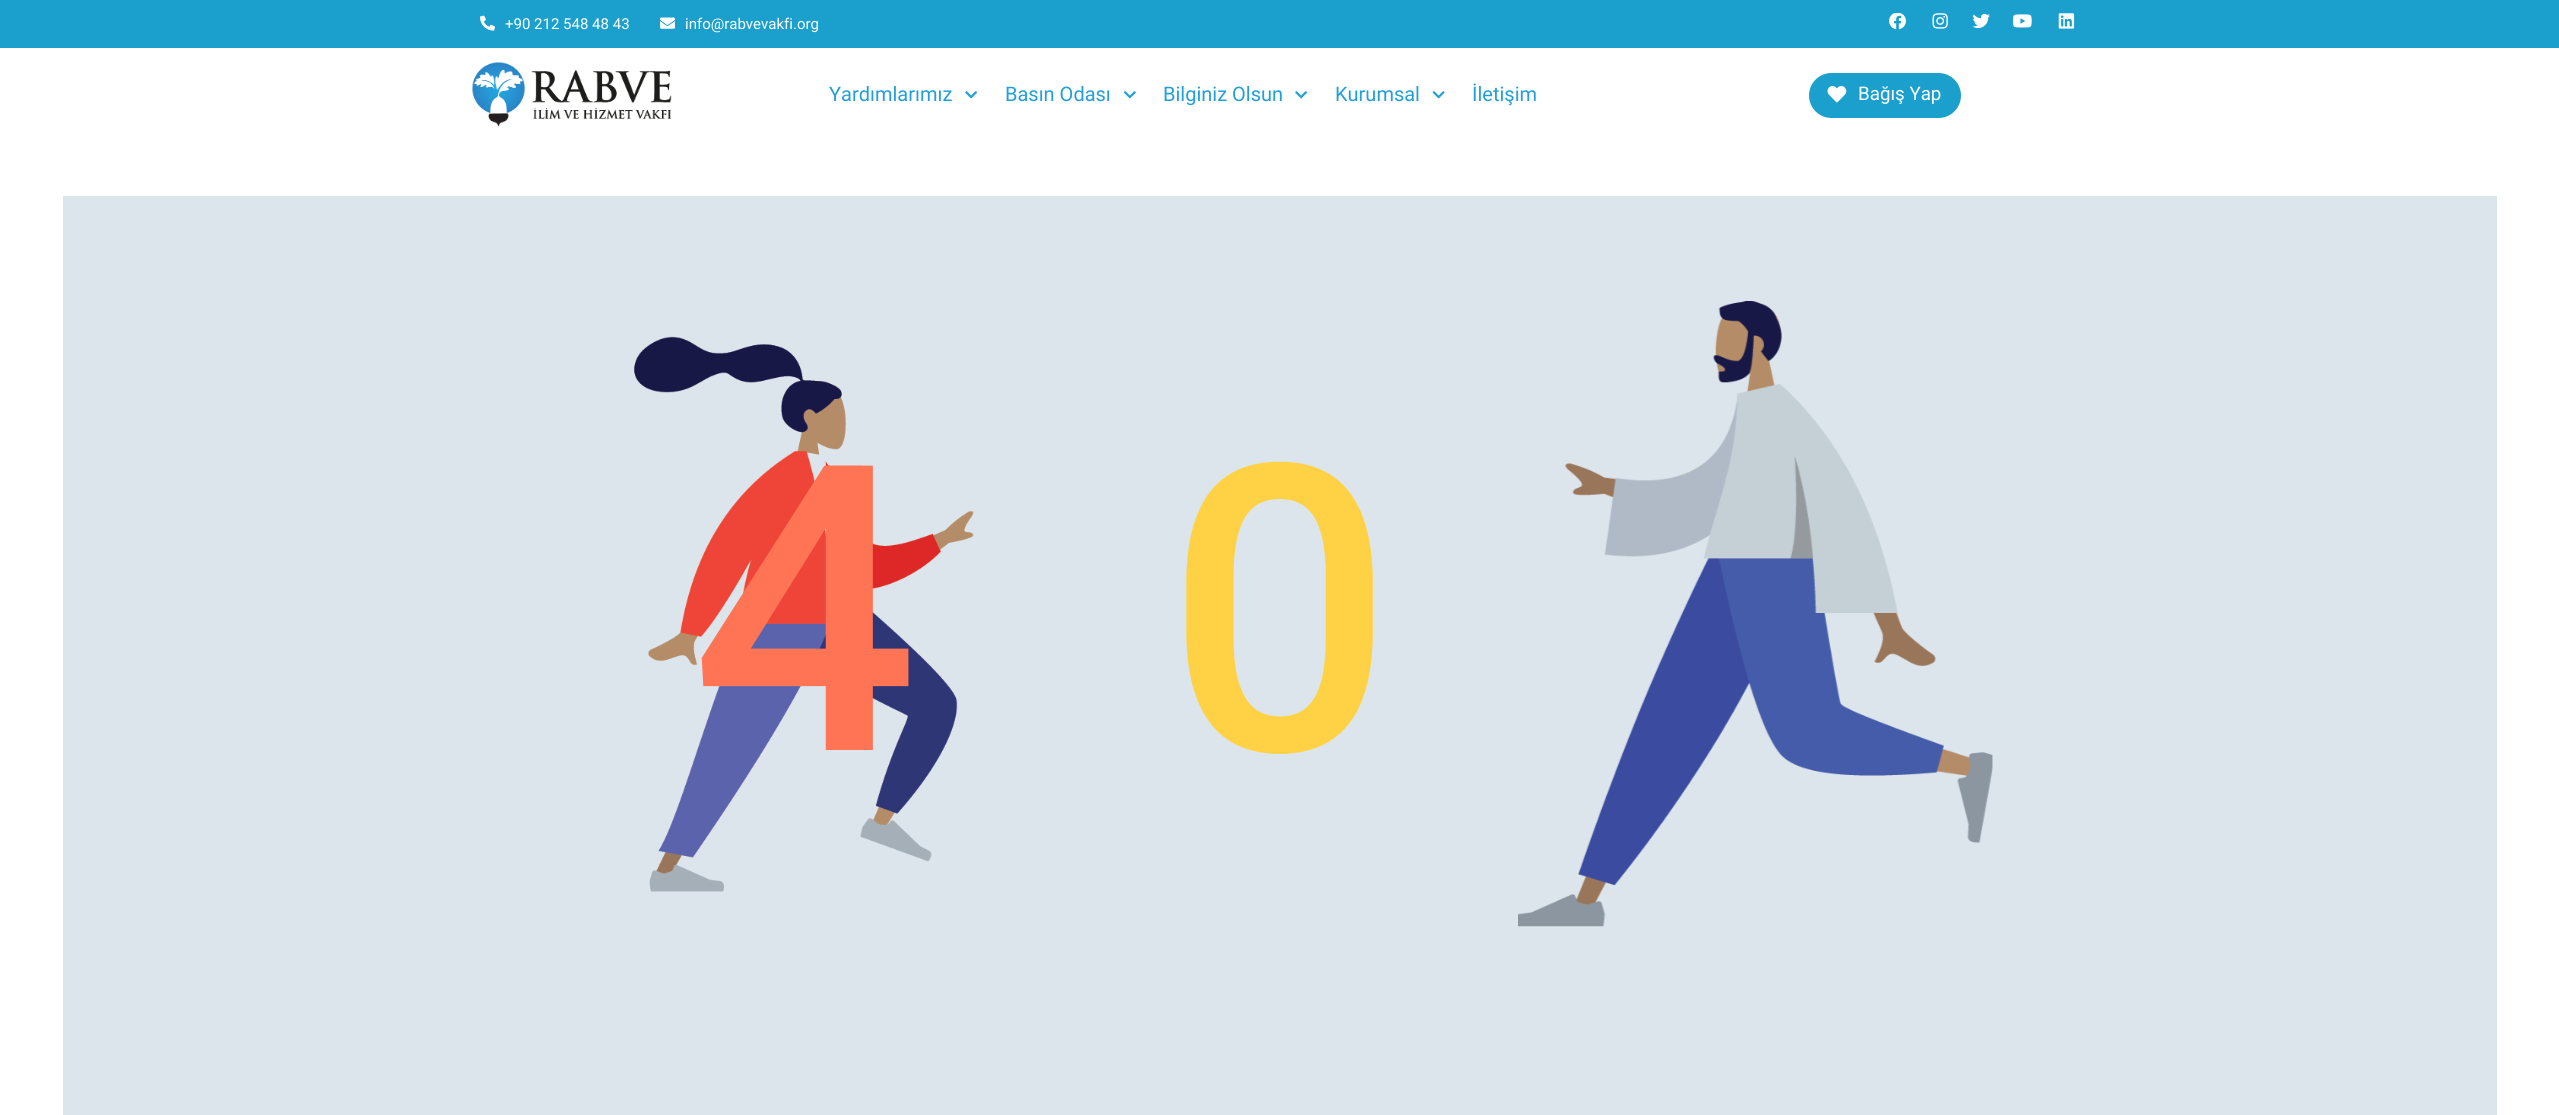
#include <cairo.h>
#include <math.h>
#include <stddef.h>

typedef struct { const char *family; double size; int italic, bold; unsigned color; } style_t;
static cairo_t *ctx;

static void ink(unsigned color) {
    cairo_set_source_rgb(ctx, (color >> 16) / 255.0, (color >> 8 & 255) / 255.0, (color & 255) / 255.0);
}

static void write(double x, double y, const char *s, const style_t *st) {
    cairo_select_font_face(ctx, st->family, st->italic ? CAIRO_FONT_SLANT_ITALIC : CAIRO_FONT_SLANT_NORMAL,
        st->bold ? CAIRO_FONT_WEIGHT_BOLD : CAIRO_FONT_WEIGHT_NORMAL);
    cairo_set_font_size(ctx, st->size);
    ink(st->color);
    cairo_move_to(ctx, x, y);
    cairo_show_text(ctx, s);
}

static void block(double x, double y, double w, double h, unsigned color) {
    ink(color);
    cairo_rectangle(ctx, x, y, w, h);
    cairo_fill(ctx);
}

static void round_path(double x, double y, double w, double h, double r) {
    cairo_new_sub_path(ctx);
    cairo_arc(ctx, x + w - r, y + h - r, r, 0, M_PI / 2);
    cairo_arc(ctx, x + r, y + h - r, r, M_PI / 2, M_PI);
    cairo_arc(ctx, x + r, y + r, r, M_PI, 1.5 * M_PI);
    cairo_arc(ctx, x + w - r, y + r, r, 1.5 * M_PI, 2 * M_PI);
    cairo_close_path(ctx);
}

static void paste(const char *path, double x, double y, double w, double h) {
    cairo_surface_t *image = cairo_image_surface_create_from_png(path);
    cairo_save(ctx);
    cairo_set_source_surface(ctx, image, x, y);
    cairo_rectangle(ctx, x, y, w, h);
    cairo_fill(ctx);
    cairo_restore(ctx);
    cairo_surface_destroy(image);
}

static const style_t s1 = {"Roboto", 15, 0, 0, 0xffffff};
static const style_t s2 = {"Roboto", 20, 0, 0, 0x229fd9};
static const style_t s3 = {"Roboto", 18.75, 0, 0, 0xffffff};
static const style_t s4 = {"Roboto Medium", 400, 0, 0, 0xfe7455};
static const style_t s5 = {"Roboto Medium", 400, 0, 0, 0xffd246};

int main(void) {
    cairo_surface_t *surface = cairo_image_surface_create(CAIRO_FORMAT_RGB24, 2559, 1115);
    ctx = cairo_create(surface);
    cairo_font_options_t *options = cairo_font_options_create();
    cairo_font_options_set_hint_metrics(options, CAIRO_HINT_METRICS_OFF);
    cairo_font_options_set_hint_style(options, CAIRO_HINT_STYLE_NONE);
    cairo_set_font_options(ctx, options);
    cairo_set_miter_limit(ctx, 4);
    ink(0xffffff);
    cairo_paint(ctx);
    block(0, 0, 2559, 48, 0x1ba0ce);
    paste("pic1.png", 480, 15, 15, 16);
    write(505, 29, "+90 212 548 48 43", &s1);
    paste("pic2.png", 660, 17, 15, 12);
    write(685, 29, "info@rabvevakfi.org", &s1);
    paste("pic3.png", 1889, 13, 17, 17);
    paste("pic4.png", 1932, 13, 16, 16);
    paste("pic5.png", 1972, 13, 18, 15);
    paste("pic6.png", 2013, 14, 19, 14);
    paste("pic7.png", 2058, 13, 17, 16);
    paste("pic8.png", 472, 62, 200, 65);
    write(829, 101, "Yardımlarımız", &s2);
    paste("pic9.png", 965, 91, 12, 8);
    write(1005, 101, "Basın Odası", &s2);
    paste("pic10.png", 1124, 91, 12, 8);
    write(1163, 101, "Bilginiz Olsun", &s2);
    paste("pic9.png", 1295, 91, 12, 8);
    write(1335, 101, "Kurumsal", &s2);
    paste("pic11.png", 1432, 91, 13, 8);
    write(1472, 101, "İletişim", &s2);
    ink(0x1ba0ce);
    round_path(1809, 73, 152, 45, 22.5);
    cairo_fill(ctx);
    paste("pic12.png", 1827, 86, 20, 17);
    write(1858, 100, "Bağış Yap", &s3);
    block(63, 196, 2434, 919, 0xdde5ec);
    paste("pic13.png", 634, 336, 340, 556);
    write(691, 750, "4", &s4);
    write(1166, 750, "0", &s5);
    paste("pic14.png", 1518, 301, 475, 626);
    cairo_surface_write_to_png(surface, "screenshot.png");
    cairo_font_options_destroy(options);
    cairo_destroy(ctx);
    cairo_surface_destroy(surface);
    return 0;
}
